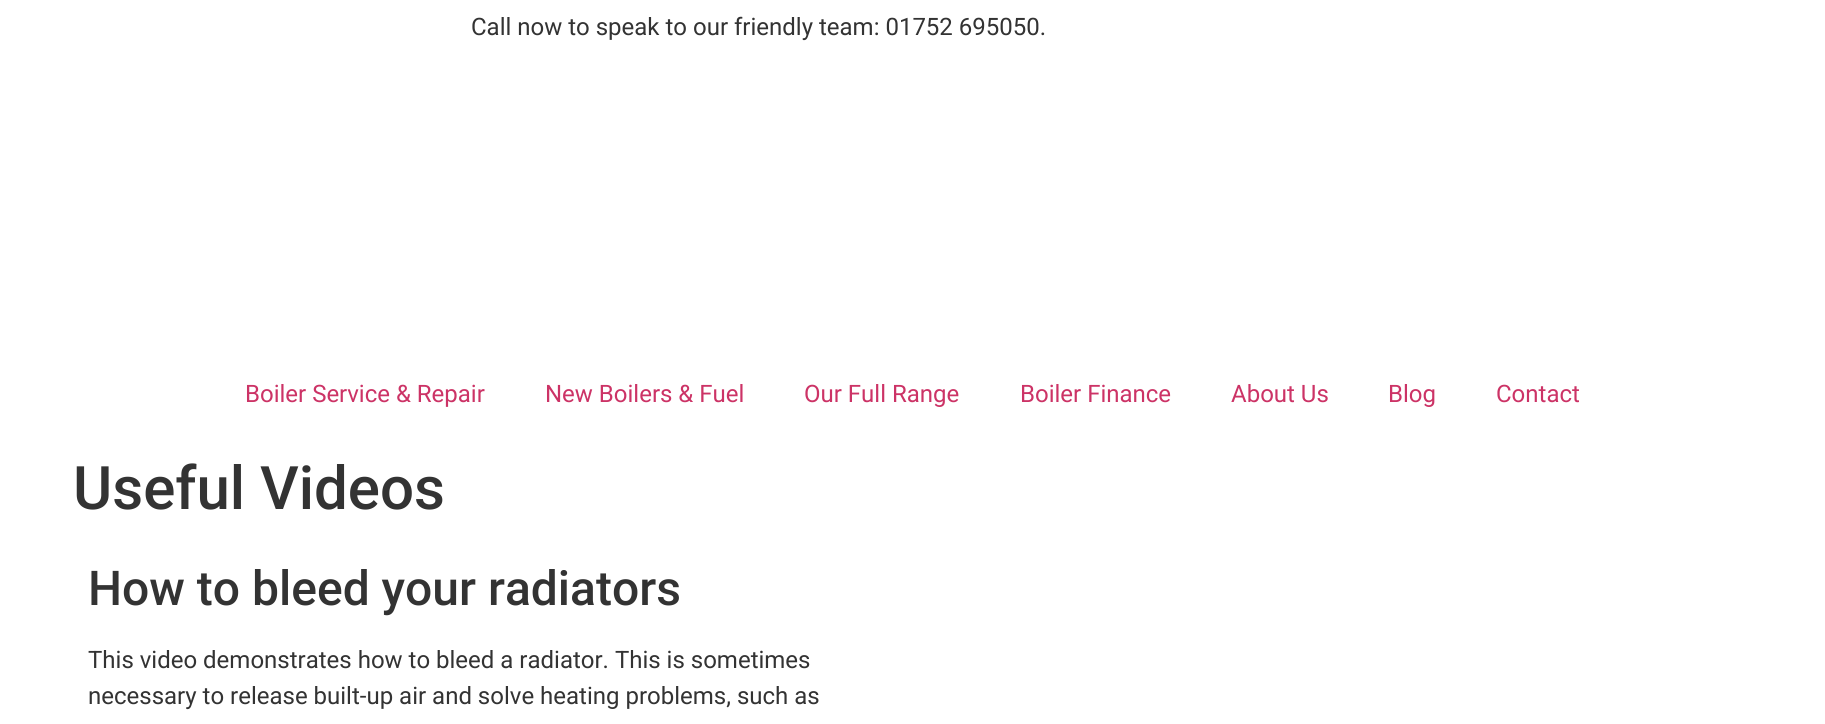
#include <cairo.h>
#include <math.h>
#include <stddef.h>

typedef struct { const char *family; double size; int italic, bold; unsigned color; } style_t;
static cairo_t *ctx;

static void ink(unsigned color) {
    cairo_set_source_rgb(ctx, (color >> 16) / 255.0, (color >> 8 & 255) / 255.0, (color & 255) / 255.0);
}

static void write(double x, double y, const char *s, const style_t *st) {
    cairo_select_font_face(ctx, st->family, st->italic ? CAIRO_FONT_SLANT_ITALIC : CAIRO_FONT_SLANT_NORMAL,
        st->bold ? CAIRO_FONT_WEIGHT_BOLD : CAIRO_FONT_WEIGHT_NORMAL);
    cairo_set_font_size(ctx, st->size);
    ink(st->color);
    cairo_move_to(ctx, x, y);
    cairo_show_text(ctx, s);
}

static const style_t s1 = {"Roboto", 24, 0, 0, 0x333333};
static const style_t s2 = {"Roboto", 24, 0, 0, 0xcc3366};
static const style_t s3 = {"Roboto Medium", 60, 0, 0, 0x333333};
static const style_t s4 = {"Roboto Medium", 48, 0, 0, 0x333333};

int main(void) {
    cairo_surface_t *surface = cairo_image_surface_create(CAIRO_FORMAT_RGB24, 1825, 724);
    ctx = cairo_create(surface);
    cairo_font_options_t *options = cairo_font_options_create();
    cairo_font_options_set_hint_metrics(options, CAIRO_HINT_METRICS_OFF);
    cairo_font_options_set_hint_style(options, CAIRO_HINT_STYLE_NONE);
    cairo_set_font_options(ctx, options);
    cairo_set_miter_limit(ctx, 4);
    ink(0xffffff);
    cairo_paint(ctx);
    write(471, 35, "Call now to speak to our friendly team: 01752 695050.", &s1);
    write(245, 402, "Boiler Service & Repair", &s2);
    write(545, 402, "New Boilers & Fuel", &s2);
    write(804, 402, "Our Full Range", &s2);
    write(1020, 402, "Boiler Finance", &s2);
    write(1231, 402, "About Us", &s2);
    write(1388, 402, "Blog", &s2);
    write(1496, 402, "Contact", &s2);
    write(73, 509, "Useful Videos", &s3);
    write(88, 605, "How to bleed your radiators", &s4);
    write(88, 668, "This video demonstrates how to bleed a radiator. This is sometimes", &s1);
    write(88, 704, "necessary to release built-up air and solve heating problems, such as", &s1);
    cairo_surface_write_to_png(surface, "screenshot.png");
    cairo_font_options_destroy(options);
    cairo_destroy(ctx);
    cairo_surface_destroy(surface);
    return 0;
}
